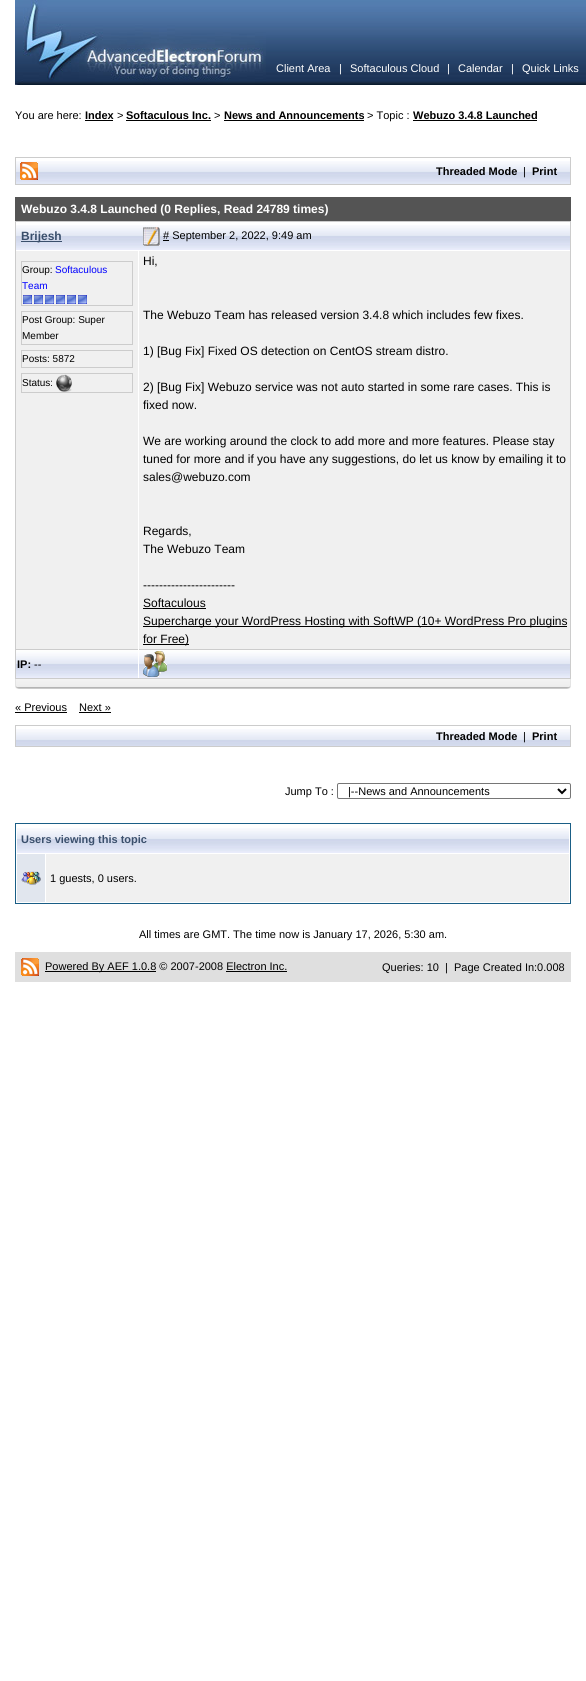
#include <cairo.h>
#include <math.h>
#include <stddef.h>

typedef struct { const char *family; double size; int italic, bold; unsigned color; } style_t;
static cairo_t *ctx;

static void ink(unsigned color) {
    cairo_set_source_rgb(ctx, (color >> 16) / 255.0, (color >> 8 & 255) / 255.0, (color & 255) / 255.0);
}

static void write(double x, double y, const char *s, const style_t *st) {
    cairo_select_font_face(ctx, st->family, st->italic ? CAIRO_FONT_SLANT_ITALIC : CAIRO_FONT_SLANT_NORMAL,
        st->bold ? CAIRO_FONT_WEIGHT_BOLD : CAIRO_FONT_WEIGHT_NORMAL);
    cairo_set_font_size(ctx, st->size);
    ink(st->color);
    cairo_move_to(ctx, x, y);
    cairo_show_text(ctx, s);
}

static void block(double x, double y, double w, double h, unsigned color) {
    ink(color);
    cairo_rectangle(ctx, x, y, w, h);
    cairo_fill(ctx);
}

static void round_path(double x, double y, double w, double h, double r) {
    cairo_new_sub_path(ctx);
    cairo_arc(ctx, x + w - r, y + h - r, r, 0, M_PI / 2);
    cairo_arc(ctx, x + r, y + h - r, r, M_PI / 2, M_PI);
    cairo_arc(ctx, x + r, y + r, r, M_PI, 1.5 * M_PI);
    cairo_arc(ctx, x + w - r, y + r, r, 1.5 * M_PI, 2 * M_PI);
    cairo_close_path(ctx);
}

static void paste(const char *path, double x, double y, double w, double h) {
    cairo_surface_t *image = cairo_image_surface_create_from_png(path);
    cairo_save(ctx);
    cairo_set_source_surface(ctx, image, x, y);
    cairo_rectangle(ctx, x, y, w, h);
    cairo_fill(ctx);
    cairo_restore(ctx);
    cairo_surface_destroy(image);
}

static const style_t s1 = {"Liberation Sans", 11, 0, 0, 0xffffff};
static const style_t s2 = {"Liberation Sans", 11, 0, 0, 0x000000};
static const style_t s3 = {"Liberation Sans", 11, 0, 1, 0x000000};
static const style_t s4 = {"Liberation Sans", 12, 0, 1, 0xffffff};
static const style_t s5 = {"Liberation Sans", 12, 0, 1, 0x3a4f6c};
static const style_t s6 = {"Liberation Sans", 10, 0, 0, 0x000000};
static const style_t s7 = {"Liberation Sans", 10, 0, 0, 0x0000ff};
static const style_t s8 = {"Liberation Sans", 12, 0, 0, 0x000000};
static const style_t s9 = {"Liberation Sans", 11, 0, 1, 0x3a4f6c};

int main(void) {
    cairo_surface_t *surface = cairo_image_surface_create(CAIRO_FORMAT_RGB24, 586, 1681);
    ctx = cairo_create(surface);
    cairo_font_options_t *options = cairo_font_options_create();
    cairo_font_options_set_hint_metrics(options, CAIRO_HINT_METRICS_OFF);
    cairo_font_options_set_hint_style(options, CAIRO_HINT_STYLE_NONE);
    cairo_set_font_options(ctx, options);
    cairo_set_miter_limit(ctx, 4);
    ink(0xffffff);
    cairo_paint(ctx);
    paste("pic1.png", 266, 0, 320, 85);
    paste("pic2.png", 15, 0, 251, 85);
    write(276, 72, "Client Area", &s1);
    write(339, 72, "|", &s1);
    write(350, 72, "Softaculous Cloud", &s1);
    write(447, 72, "|", &s1);
    write(458, 72, "Calendar", &s1);
    write(511, 72, "|", &s1);
    write(522, 72, "Quick Links", &s1);
    write(15, 119, "You are here:", &s2);
    write(85, 119, "Index", &s3);
    block(85, 120, 28, 1, 0x000000);
    write(117, 119, ">", &s2);
    write(126, 119, "Softaculous Inc.", &s3);
    block(126, 120, 85, 1, 0x000000);
    write(214, 119, ">", &s2);
    write(224, 119, "News and Announcements", &s3);
    block(224, 120, 140, 1, 0x000000);
    write(367, 119, "> Topic :", &s2);
    write(413, 119, "Webuzo 3.4.8 Launched", &s3);
    block(413, 120, 124, 1, 0x000000);
    cairo_rectangle(ctx, 15.5, 157.5, 555, 27);
    ink(0xcccccc);
    cairo_set_line_width(ctx, 1);
    cairo_stroke(ctx);
    paste("pic3.png", 16, 161, 86, 23);
    paste("pic4.png", 20, 162, 18, 18);
    paste("pic5.png", 102, 161, 468, 23);
    write(436, 175, "Threaded Mode", &s3);
    write(523, 175, "|", &s2);
    write(532, 175, "Print", &s3);
    block(15, 197, 556, 24, 0x545454);
    write(21, 213, "Webuzo 3.4.8 Launched (0 Replies, Read 24789 times)", &s4);
    cairo_rectangle(ctx, 15.5, 221.5, 555, 457);
    ink(0xcccccc);
    cairo_stroke(ctx);
    paste("pic6.png", 16, 225, 122, 25);
    block(21, 241, 41, 1, 0x3a4f6c);
    write(21, 240, "Brijesh", &s5);
    paste("pic7.png", 138, 225, 432, 25);
    paste("pic8.png", 143, 227, 17, 19);
    block(163, 240, 6, 1, 0x000000);
    write(163, 239, "# September 2, 2022, 9:49 am", &s2);
    block(16, 251, 122, 398, 0xf0f0f0);
    cairo_rectangle(ctx, 21.5, 261.5, 111, 44);
    ink(0xcccccc);
    cairo_stroke(ctx);
    write(22, 273, "Group:", &s6);
    write(55, 273, "Softaculous", &s7);
    write(22, 289, "Team", &s7);
    paste("pic9.png", 23, 295, 9, 9);
    paste("pic9.png", 34, 295, 9, 9);
    paste("pic9.png", 45, 295, 9, 9);
    paste("pic9.png", 56, 295, 9, 9);
    paste("pic9.png", 67, 295, 9, 9);
    paste("pic9.png", 78, 295, 9, 9);
    cairo_rectangle(ctx, 21.5, 311.5, 111, 33);
    ink(0xcccccc);
    cairo_stroke(ctx);
    write(22, 323, "Post Group: Super", &s6);
    write(22, 339, "Member", &s6);
    cairo_rectangle(ctx, 21.5, 350.5, 111, 17);
    ink(0xcccccc);
    cairo_stroke(ctx);
    write(22, 362, "Posts: 5872", &s6);
    cairo_rectangle(ctx, 21.5, 373.5, 111, 19);
    ink(0xcccccc);
    cairo_stroke(ctx);
    write(22, 386, "Status:", &s6);
    paste("pic10.png", 56, 374, 16, 18);
    block(139, 251, 431, 398, 0xf0f0f0);
    write(143, 265, "Hi,", &s8);
    write(143, 319, "The Webuzo Team has released version 3.4.8 which includes few fixes.", &s8);
    write(143, 355, "1) [Bug Fix] Fixed OS detection on CentOS stream distro.", &s8);
    write(143, 391, "2) [Bug Fix] Webuzo service was not auto started in some rare cases. This is", &s8);
    write(143, 409, "fixed now.", &s8);
    write(143, 445, "We are working around the clock to add more and more features. Please stay", &s8);
    write(143, 463, "tuned for more and if you have any suggestions, do let us know by emailing it to", &s8);
    write(143, 481, "sales@webuzo.com", &s8);
    write(143, 535, "Regards,", &s8);
    write(143, 553, "The Webuzo Team", &s8);
    write(143, 589, "-----------------------", &s8);
    write(143, 607, "Softaculous", &s8);
    block(143, 608, 63, 1, 0x000000);
    block(143, 626, 424, 1, 0x000000);
    write(143, 625, "Supercharge your WordPress Hosting with SoftWP (10+ WordPress Pro plugins", &s8);
    block(143, 644, 46, 1, 0x000000);
    write(143, 643, "for Free)", &s8);
    paste("pic11.png", 16, 650, 122, 28);
    block(16, 649, 554, 1, 0xcccccc);
    write(17, 668, "IP:", &s3);
    write(34, 668, "--", &s2);
    paste("pic12.png", 139, 650, 431, 28);
    block(138, 649, 1, 1, 0xffffff);
    paste("pic13.png", 143, 651, 24, 26);
    paste("pic14.png", 15, 679, 556, 10);
    write(15, 711, "« Previous", &s2);
    block(15, 712, 52, 1, 0x000000);
    write(79, 711, "Next »", &s2);
    block(79, 712, 32, 1, 0x000000);
    cairo_rectangle(ctx, 15.5, 725.5, 555, 21);
    ink(0xcccccc);
    cairo_stroke(ctx);
    paste("pic15.png", 16, 729, 554, 17);
    write(436, 740, "Threaded Mode", &s3);
    write(523, 740, "|", &s2);
    write(532, 740, "Print", &s3);
    write(285, 795, "Jump To :", &s2);
    round_path(337.5, 783.5, 233, 15, 1.5);
    ink(0x767676);
    cairo_stroke(ctx);
    cairo_new_path(ctx);
    cairo_move_to(ctx, 558, 789);
    cairo_line_to(ctx, 562, 793);
    cairo_line_to(ctx, 566, 789);
    ink(0x000000);
    cairo_set_line_width(ctx, 2);
    cairo_stroke(ctx);
    write(348, 795, "|--News and Announcements", &s2);
    cairo_rectangle(ctx, 15.5, 823.5, 555, 80);
    ink(0x1a5e86);
    cairo_set_line_width(ctx, 1);
    cairo_stroke(ctx);
    paste("pic16.png", 17, 828, 552, 25);
    write(21, 843, "Users viewing this topic", &s9);
    block(17, 854, 28, 48, 0xe1e6ee);
    paste("pic17.png", 21, 871, 20, 14);
    block(46, 854, 523, 48, 0xf0f0f0);
    write(50, 882, "1 guests, 0 users.", &s2);
    write(139, 938, "All times are GMT. The time now is January 17, 2026, 5:30 am.", &s2);
    block(15, 952, 556, 30, 0xdfdfdf);
    paste("pic18.png", 21, 958, 18, 18);
    block(45, 971, 111, 1, 0x000000);
    write(45, 970, "Powered By AEF 1.0.8 © 2007-2008 Electron Inc.", &s2);
    block(226, 971, 61, 1, 0x000000);
    write(382, 971, "Queries: 10  |  Page Created In:0.008", &s2);
    cairo_surface_write_to_png(surface, "screenshot.png");
    cairo_font_options_destroy(options);
    cairo_destroy(ctx);
    cairo_surface_destroy(surface);
    return 0;
}
